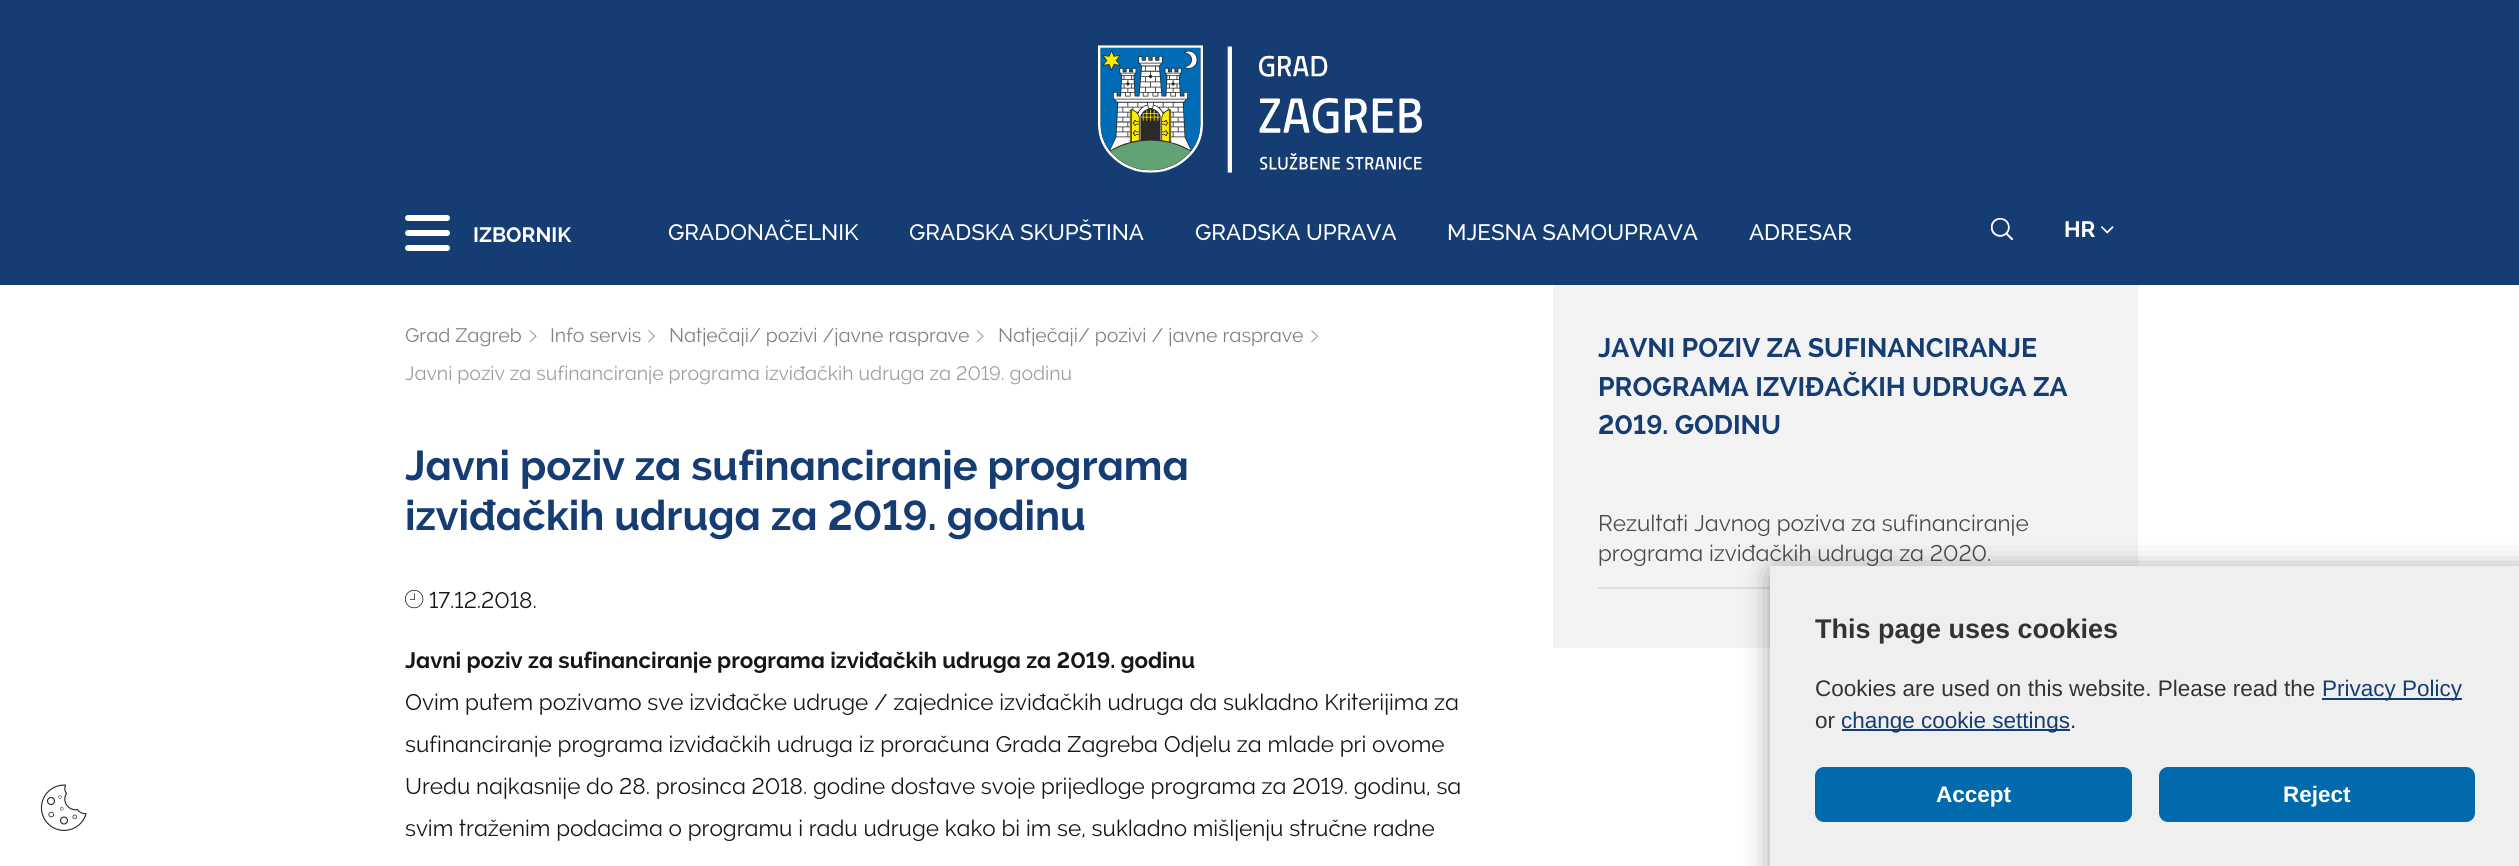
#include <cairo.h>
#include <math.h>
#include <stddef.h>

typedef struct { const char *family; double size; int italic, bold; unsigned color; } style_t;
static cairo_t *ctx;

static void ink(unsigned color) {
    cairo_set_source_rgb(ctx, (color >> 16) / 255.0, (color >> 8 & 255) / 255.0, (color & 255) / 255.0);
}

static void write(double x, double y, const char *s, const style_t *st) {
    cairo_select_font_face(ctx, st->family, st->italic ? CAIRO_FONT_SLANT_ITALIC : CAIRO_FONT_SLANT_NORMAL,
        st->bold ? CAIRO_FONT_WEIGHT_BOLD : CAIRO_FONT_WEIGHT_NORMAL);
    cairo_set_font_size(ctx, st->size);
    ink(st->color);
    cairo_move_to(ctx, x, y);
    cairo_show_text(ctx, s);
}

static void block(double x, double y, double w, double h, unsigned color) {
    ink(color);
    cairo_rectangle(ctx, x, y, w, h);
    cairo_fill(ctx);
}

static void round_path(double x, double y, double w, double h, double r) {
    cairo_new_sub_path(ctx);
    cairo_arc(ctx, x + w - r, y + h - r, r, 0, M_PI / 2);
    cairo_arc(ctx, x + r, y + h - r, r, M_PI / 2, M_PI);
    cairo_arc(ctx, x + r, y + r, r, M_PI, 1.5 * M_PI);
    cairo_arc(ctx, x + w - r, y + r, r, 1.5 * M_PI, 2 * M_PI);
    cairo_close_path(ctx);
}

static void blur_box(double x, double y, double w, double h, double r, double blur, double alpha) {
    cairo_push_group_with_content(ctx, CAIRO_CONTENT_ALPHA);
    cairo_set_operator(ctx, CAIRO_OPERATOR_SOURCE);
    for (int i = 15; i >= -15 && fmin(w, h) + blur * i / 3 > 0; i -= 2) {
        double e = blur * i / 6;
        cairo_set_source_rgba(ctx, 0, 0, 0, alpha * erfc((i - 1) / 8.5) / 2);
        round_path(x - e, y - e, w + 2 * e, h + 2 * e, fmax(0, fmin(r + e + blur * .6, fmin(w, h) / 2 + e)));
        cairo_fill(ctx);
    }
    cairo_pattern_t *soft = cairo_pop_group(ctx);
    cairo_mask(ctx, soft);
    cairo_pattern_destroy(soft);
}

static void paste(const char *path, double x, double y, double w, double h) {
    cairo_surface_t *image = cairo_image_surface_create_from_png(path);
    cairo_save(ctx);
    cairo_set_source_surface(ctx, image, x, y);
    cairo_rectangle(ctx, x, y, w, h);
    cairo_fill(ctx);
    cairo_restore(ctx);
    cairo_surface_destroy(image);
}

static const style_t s1 = {"Raleway", 21, 0, 1, 0xffffff};
static const style_t s2 = {"Raleway Medium", 22.5, 0, 0, 0xffffff};
static const style_t s3 = {"Raleway", 22.5, 0, 1, 0xffffff};
static const style_t s4 = {"Raleway", 19.5, 0, 0, 0x818181};
static const style_t s5 = {"Raleway", 19.5, 0, 0, 0x9e9e9e};
static const style_t s6 = {"Raleway", 42, 0, 1, 0x163d73};
static const style_t s7 = {"Raleway", 22.5, 0, 0, 0x161616};
static const style_t s8 = {"Raleway", 22.5, 0, 1, 0x161616};
static const style_t s9 = {"Raleway", 27, 0, 1, 0x163d73};
static const style_t s10 = {"Raleway", 22.5, 0, 0, 0x4a4a4a};
static const style_t s11 = {"Liberation Sans", 27, 0, 1, 0x333333};
static const style_t s12 = {"Liberation Sans", 22.5, 0, 0, 0x333333};
static const style_t s13 = {"Liberation Sans", 22.5, 0, 0, 0x163d73};
static const style_t s14 = {"Liberation Sans", 22.5, 0, 1, 0xffffff};

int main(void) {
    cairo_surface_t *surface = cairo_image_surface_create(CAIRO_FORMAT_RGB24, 2519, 866);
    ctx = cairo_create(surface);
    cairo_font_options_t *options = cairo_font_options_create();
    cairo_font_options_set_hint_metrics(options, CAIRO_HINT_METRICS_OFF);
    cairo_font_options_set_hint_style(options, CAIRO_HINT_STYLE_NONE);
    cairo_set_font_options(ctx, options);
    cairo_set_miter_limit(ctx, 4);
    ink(0xffffff);
    cairo_paint(ctx);
    block(0, 0, 2519, 285, 0x163d73);
    paste("pic1.png", 1098, 45, 324, 128);
    ink(0xffffff);
    round_path(405, 245, 45, 6, 3);
    cairo_fill(ctx);
    round_path(405, 215, 45, 6, 3);
    cairo_fill(ctx);
    round_path(405, 230, 45, 6, 3);
    cairo_fill(ctx);
    write(473, 242, "IZBORNIK", &s1);
    write(668, 240, "GRADONAČELNIK", &s2);
    write(909, 240, "GRADSKA SKUPŠTINA", &s2);
    write(1195, 240, "GRADSKA UPRAVA", &s2);
    write(1447, 240, "MJESNA SAMOUPRAVA", &s2);
    write(1749, 240, "ADRESAR", &s2);
    paste("pic2.png", 1991, 218, 22, 22);
    write(2064, 237, "HR", &s3);
    paste("pic3.png", 2101, 226, 13, 8);
    paste("pic4.png", 40, 784, 47, 47);
    write(405, 342, "Grad Zagreb", &s4);
    paste("pic5.png", 529, 330, 8, 13);
    write(550, 342, "Info servis", &s4);
    paste("pic6.png", 648, 330, 8, 13);
    write(669, 342, "Natječaji/ pozivi /javne rasprave", &s4);
    paste("pic5.png", 976, 330, 8, 13);
    write(998, 342, "Natječaji/ pozivi / javne rasprave", &s4);
    paste("pic6.png", 1311, 330, 8, 13);
    write(405, 380, "Javni poziv za sufinanciranje programa izviđačkih udruga za 2019. godinu", &s5);
    write(405, 480, "Javni poziv za sufinanciranje programa", &s6);
    write(405, 530, "izviđačkih udruga za 2019. godinu", &s6);
    paste("pic7.png", 405, 589, 19, 20);
    write(429, 608, "17.12.2018.", &s7);
    write(405, 668, "Javni poziv za sufinanciranje programa izviđačkih udruga za 2019. godinu", &s8);
    write(405, 710, "Ovim putem pozivamo sve izviđačke udruge / zajednice izviđačkih udruga da sukladno Kriterijima za", &s7);
    write(405, 752, "sufinanciranje programa izviđačkih udruga iz proračuna Grada Zagreba Odjelu za mlade pri ovome", &s7);
    write(405, 794, "Uredu najkasnije do 28. prosinca 2018. godine dostave svoje prijedloge programa za 2019. godinu, sa", &s7);
    write(405, 836, "svim traženim podacima o programu i radu udruge kako bi im se, sukladno mišljenju stručne radne", &s7);
    block(1553, 285, 585, 363, 0xf3f3f3);
    write(1598, 357, "JAVNI POZIV ZA SUFINANCIRANJE", &s9);
    write(1598, 396, "PROGRAMA IZVIĐAČKIH UDRUGA ZA", &s9);
    write(1598, 434, "2019. GODINU", &s9);
    block(1598, 587, 172, 2, 0xdedede);
    write(1598, 531, "Rezultati Javnog poziva za sufinanciranje", &s10);
    write(1598, 561, "programa izviđačkih udruga za 2020.", &s10);
    ink(0x000000);
    blur_box(1775, 573, 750, 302, 0, 15, 0.5);
    block(1770, 566, 749, 300, 0xefefef);
    write(1815, 638, "This page uses cookies", &s11);
    write(1815, 696, "Cookies are used on this website. Please read the", &s12);
    block(2322, 698, 140, 2, 0x163d73);
    write(2322, 696, "Privacy Policy", &s13);
    write(1815, 728, "or", &s12);
    block(1842, 729, 228, 2, 0x163d73);
    write(1841, 728, "change cookie settings", &s13);
    write(2070, 728, ".", &s12);
    ink(0x006aad);
    round_path(1815, 767, 317, 55, 9);
    cairo_fill(ctx);
    write(1936, 802, "Accept", &s14);
    ink(0x006aad);
    round_path(2159, 767, 316, 55, 9);
    cairo_fill(ctx);
    write(2283, 802, "Reject", &s14);
    cairo_surface_write_to_png(surface, "screenshot.png");
    cairo_font_options_destroy(options);
    cairo_destroy(ctx);
    cairo_surface_destroy(surface);
    return 0;
}
